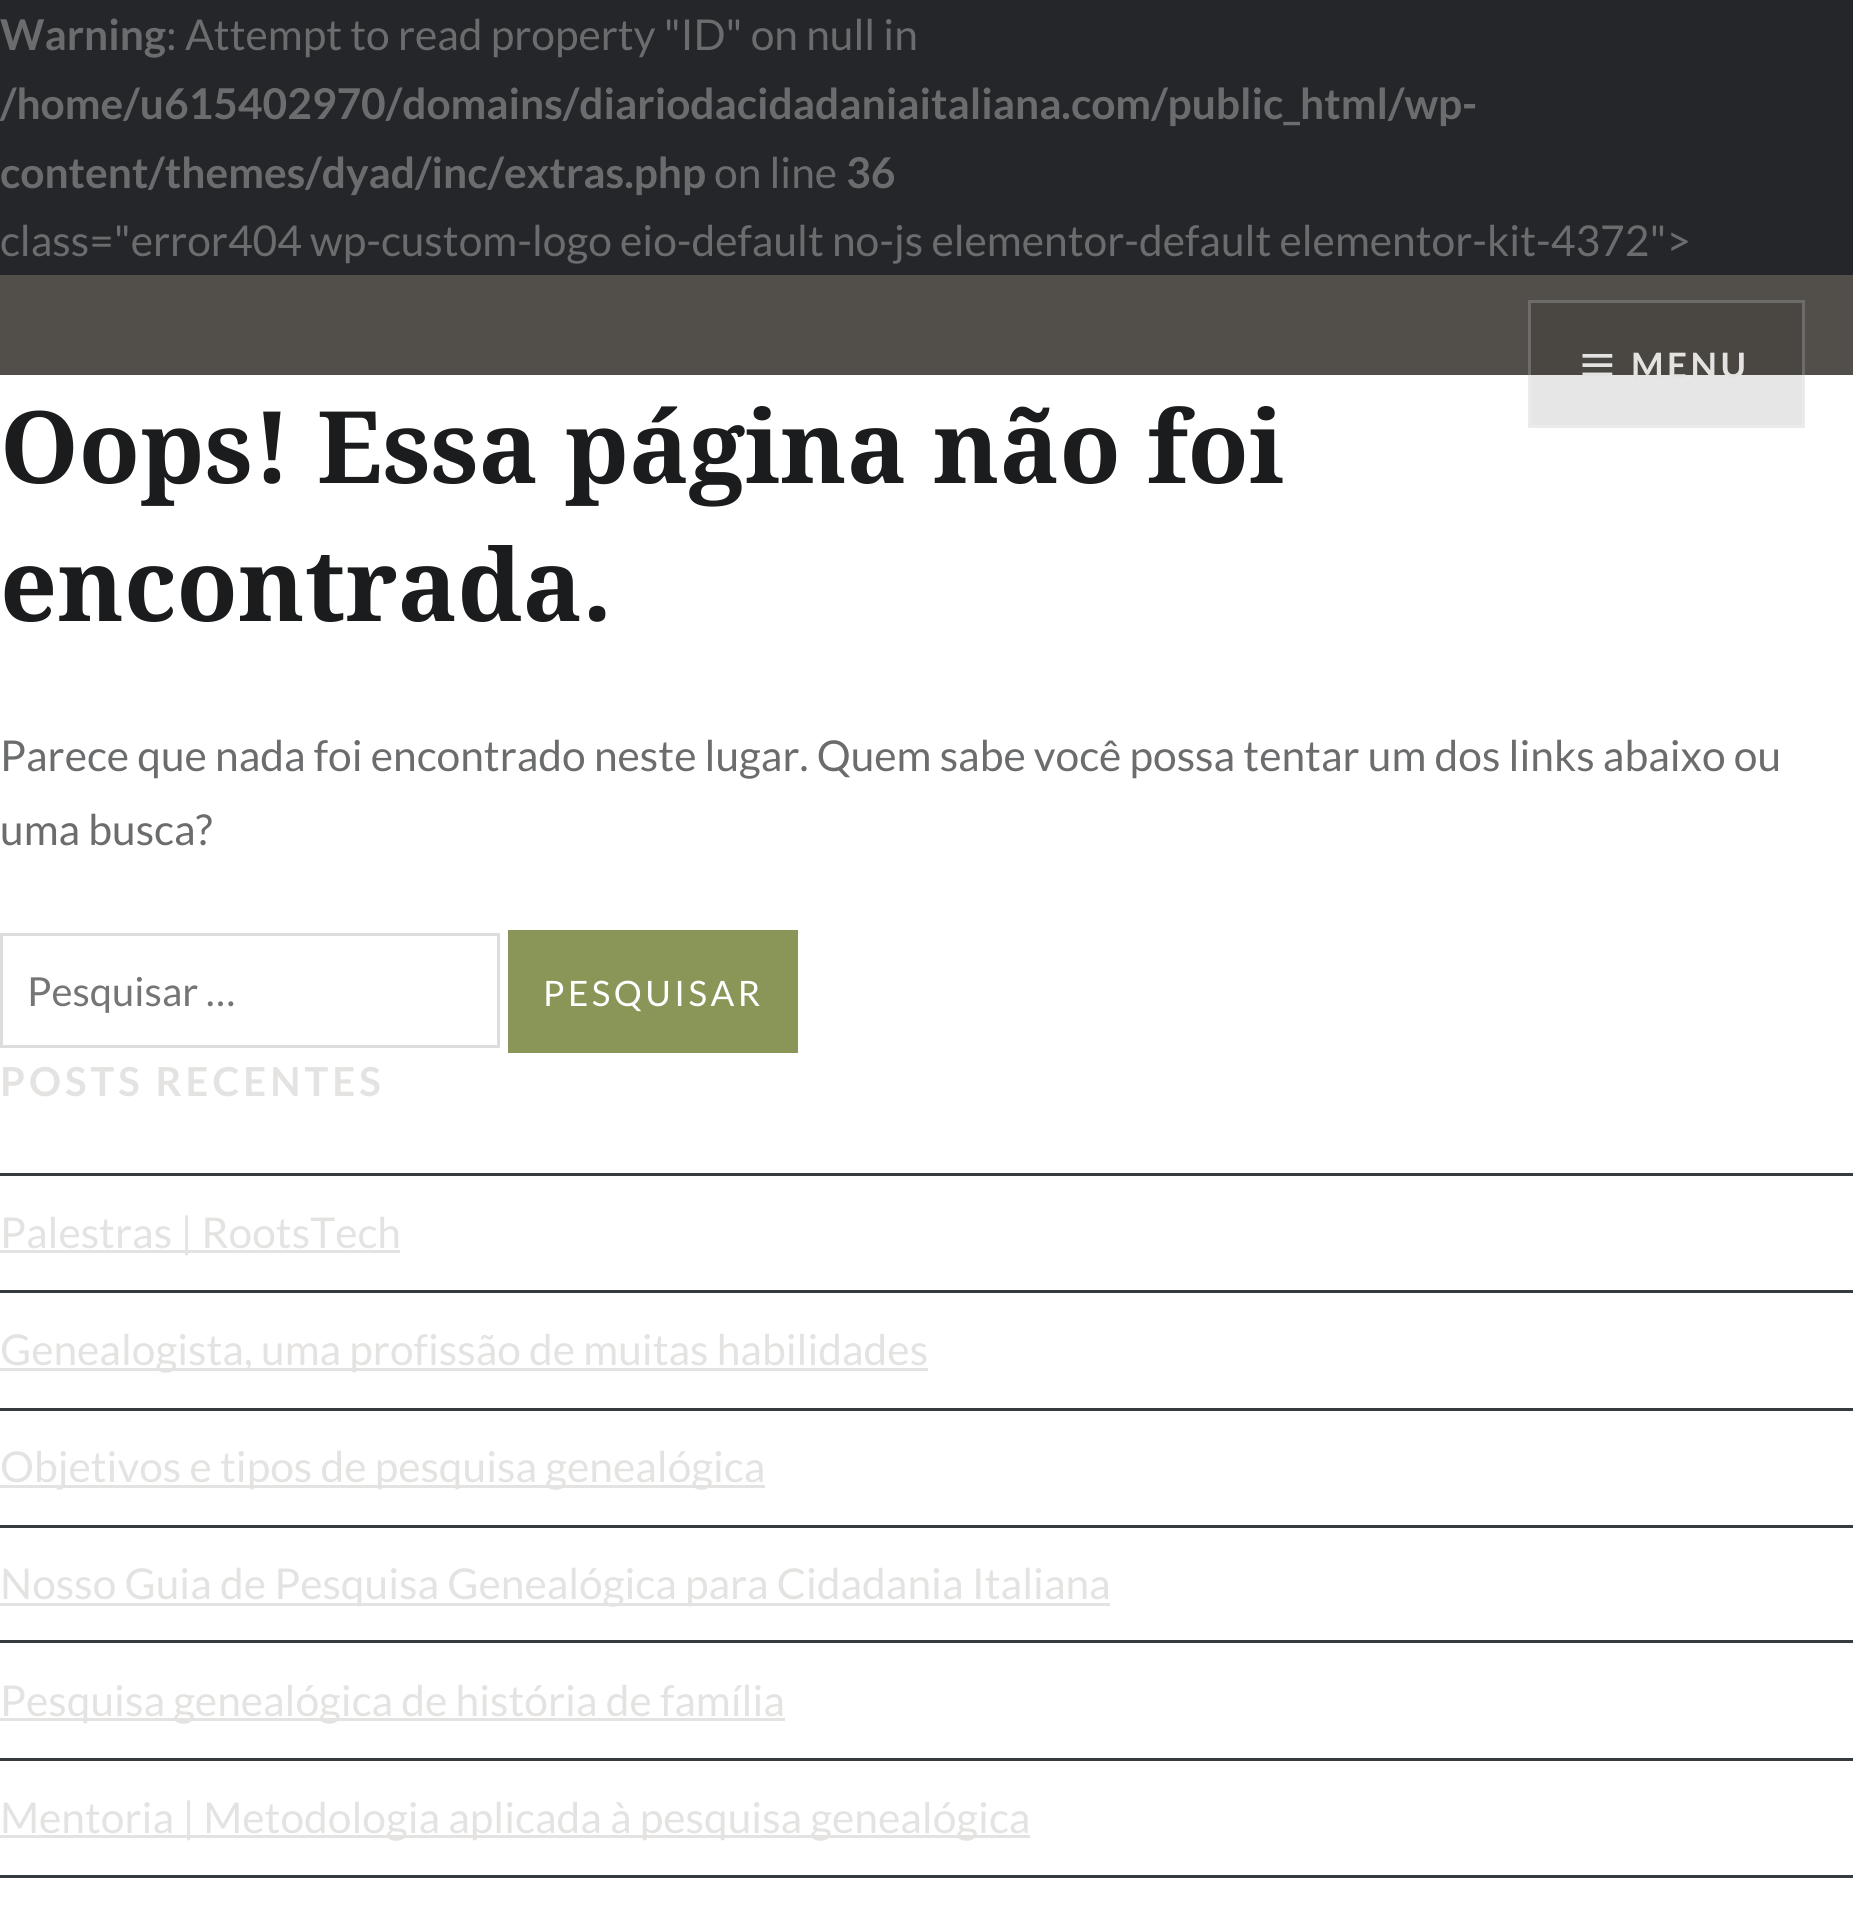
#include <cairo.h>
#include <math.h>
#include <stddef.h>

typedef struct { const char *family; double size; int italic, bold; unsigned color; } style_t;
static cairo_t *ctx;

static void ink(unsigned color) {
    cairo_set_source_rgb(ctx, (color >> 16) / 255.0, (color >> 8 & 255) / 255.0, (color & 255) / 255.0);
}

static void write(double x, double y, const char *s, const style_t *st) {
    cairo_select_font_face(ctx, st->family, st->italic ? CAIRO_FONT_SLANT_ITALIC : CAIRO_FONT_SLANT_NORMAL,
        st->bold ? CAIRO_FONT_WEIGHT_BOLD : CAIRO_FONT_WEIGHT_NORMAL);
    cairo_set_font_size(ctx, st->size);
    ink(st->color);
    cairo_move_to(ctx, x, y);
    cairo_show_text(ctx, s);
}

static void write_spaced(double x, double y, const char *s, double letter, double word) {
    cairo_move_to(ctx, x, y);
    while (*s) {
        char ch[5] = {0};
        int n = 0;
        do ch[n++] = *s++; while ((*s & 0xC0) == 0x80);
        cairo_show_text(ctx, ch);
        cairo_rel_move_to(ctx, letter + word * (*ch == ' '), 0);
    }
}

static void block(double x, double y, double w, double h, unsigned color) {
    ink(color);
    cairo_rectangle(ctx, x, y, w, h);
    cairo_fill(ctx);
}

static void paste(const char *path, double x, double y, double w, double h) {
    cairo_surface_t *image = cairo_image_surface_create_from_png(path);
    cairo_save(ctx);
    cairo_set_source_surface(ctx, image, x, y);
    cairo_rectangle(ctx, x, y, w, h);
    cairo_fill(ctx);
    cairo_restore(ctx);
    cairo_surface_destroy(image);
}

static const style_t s1 = {"Lato", 42.5, 0, 1, 0x6a6c6e};
static const style_t s2 = {"Lato", 42.5, 0, 0, 0x6a6c6e};
static const style_t s3 = {"Noto Serif", 100, 0, 1, 0x1a1c1e};
static const style_t s4 = {"Lato", 40, 0, 0, 0x757575};
static const style_t s5 = {"Lato", 42.5, 0, 0, 0xe4e3e1};

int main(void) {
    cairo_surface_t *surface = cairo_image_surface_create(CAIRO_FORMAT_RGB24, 1853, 1911);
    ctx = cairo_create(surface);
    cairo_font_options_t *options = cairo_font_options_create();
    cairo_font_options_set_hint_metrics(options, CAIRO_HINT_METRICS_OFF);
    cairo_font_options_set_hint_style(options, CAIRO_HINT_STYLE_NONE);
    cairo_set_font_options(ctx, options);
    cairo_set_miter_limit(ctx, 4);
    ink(0x242629);
    cairo_paint(ctx);
    write(0, 50, "Warning", &s1);
    write(166, 50, ": Attempt to read property \"ID\" on null in", &s2);
    write(0, 119, "/home/u615402970/domains/diariodacidadaniaitaliana.com/public_html/wp-", &s1);
    write(0, 188, "content/themes/dyad/inc/extras.php", &s1);
    write(714, 188, "on line", &s2);
    write(846, 188, "36", &s1);
    write(0, 256, "class=\"error404 wp-custom-logo eio-default no-js elementor-default elementor-kit-4372\">", &s2);
    block(0, 375, 1853, 1536, 0xffffff);
    block(1528, 375, 277, 53, 0xe6e6e6);
    block(0, 275, 1853, 100, 0x524f4a);
    block(1528, 300, 277, 75, 0x4a4743);
    cairo_rectangle(ctx, 1529.5, 301.5, 274, 125);
    cairo_set_source_rgba(ctx, 1, 1, 1, 0.2);
    cairo_set_line_width(ctx, 3);
    cairo_stroke(ctx);
    paste("pic1.png", 1582, 353, 31, 23);
    cairo_select_font_face(ctx, "Lato", CAIRO_FONT_SLANT_NORMAL, CAIRO_FONT_WEIGHT_BOLD);
    cairo_set_font_size(ctx, 35);
    ink(0xe4e3e1);
    write_spaced(1631, 378, "MENU", 3.5, 0);
    write(0, 483, "Oops! Essa página não foi", &s3);
    write(0, 621, "encontrada.", &s3);
    write(0, 771, "Parece que nada foi encontrado neste lugar. Quem sabe você possa tentar um dos links abaixo ou", &s2);
    write(0, 845, "uma busca?", &s2);
    cairo_rectangle(ctx, 1.5, 934.5, 497, 112);
    ink(0xdddddd);
    cairo_stroke(ctx);
    write(27, 1006, "Pesquisar …", &s4);
    block(508, 930, 290, 123, 0x8a9657);
    cairo_set_font_size(ctx, 35);
    ink(0xffffff);
    write_spaced(543, 1006, "PESQUISAR", 3.5, 0);
    cairo_select_font_face(ctx, "Lato", CAIRO_FONT_SLANT_NORMAL, CAIRO_FONT_WEIGHT_BOLD);
    cairo_set_font_size(ctx, 40);
    ink(0xe4e3e1);
    write_spaced(0, 1096, "POSTS RECENTES", 4, 0);
    block(0, 1173, 1853, 3, 0x363b40);
    block(0, 1290, 1853, 3, 0x363b40);
    block(0, 1250, 400, 3, 0xe4e3e1);
    write(0, 1248, "Palestras | RootsTech", &s5);
    block(0, 1408, 1853, 3, 0x363b40);
    block(0, 1368, 928, 3, 0xe4e3e1);
    write(0, 1365, "Genealogista, uma profissão de muitas habilidades", &s5);
    block(0, 1525, 1853, 3, 0x363b40);
    block(0, 1485, 765, 3, 0xe4e3e1);
    write(0, 1482, "Objetivos e tipos de pesquisa genealógica", &s5);
    block(0, 1640, 1853, 3, 0x363b40);
    block(0, 1603, 1110, 3, 0xe4e3e1);
    write(0, 1599, "Nosso Guia de Pesquisa Genealógica para Cidadania Italiana", &s5);
    block(0, 1758, 1853, 3, 0x363b40);
    block(0, 1718, 785, 3, 0xe4e3e1);
    write(0, 1716, "Pesquisa genealógica de história de família", &s5);
    block(0, 1875, 1853, 3, 0x363b40);
    block(0, 1835, 1030, 3, 0xe4e3e1);
    write(0, 1833, "Mentoria | Metodologia aplicada à pesquisa genealógica", &s5);
    cairo_surface_write_to_png(surface, "screenshot.png");
    cairo_font_options_destroy(options);
    cairo_destroy(ctx);
    cairo_surface_destroy(surface);
    return 0;
}
